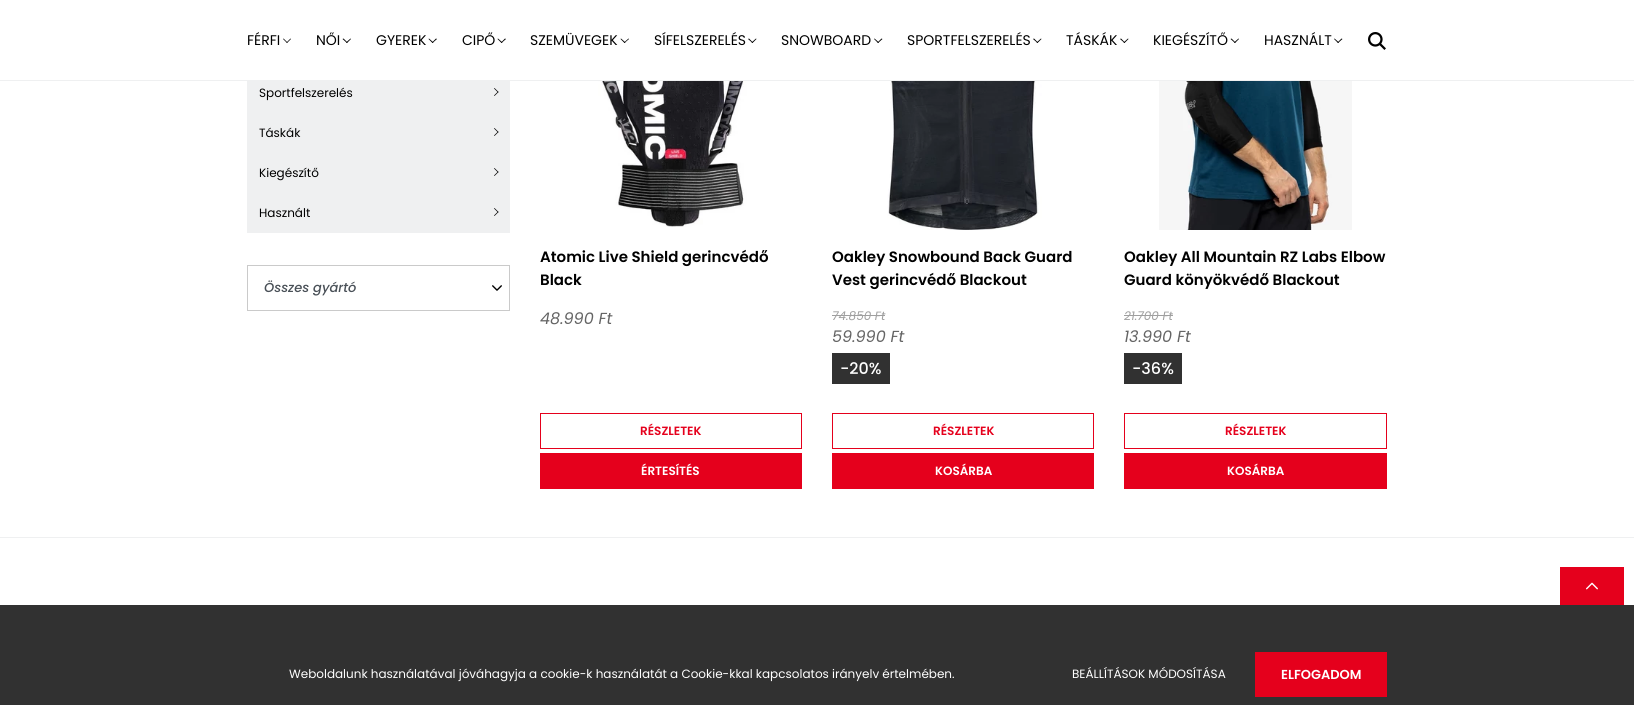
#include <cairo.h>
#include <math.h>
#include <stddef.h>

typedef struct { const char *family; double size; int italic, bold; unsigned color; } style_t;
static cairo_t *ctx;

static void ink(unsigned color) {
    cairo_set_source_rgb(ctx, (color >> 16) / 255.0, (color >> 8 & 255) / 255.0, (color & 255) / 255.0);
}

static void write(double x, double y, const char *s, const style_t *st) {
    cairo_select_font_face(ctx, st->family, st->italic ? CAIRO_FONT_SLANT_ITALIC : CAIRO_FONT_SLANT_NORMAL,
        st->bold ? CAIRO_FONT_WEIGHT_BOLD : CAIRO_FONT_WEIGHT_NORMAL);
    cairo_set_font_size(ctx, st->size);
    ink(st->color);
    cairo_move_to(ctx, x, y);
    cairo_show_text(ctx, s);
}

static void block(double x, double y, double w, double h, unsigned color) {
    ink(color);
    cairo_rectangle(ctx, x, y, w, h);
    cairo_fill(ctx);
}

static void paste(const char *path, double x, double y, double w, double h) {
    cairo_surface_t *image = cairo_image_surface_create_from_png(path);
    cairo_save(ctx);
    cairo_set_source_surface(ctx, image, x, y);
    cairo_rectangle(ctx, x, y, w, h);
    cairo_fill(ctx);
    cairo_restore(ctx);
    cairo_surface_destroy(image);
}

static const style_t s1 = {"Poppins", 14, 0, 0, 0x000000};
static const style_t s2 = {"Poppins", 12, 0, 0, 0x000000};
static const style_t s3 = {"Poppins Medium", 13, 1, 0, 0x495057};
static const style_t s4 = {"Poppins SemiBold", 15, 0, 0, 0x000000};
static const style_t s5 = {"Poppins", 16, 1, 0, 0x646464};
static const style_t s6 = {"Poppins SemiBold", 12, 0, 0, 0xe5001c};
static const style_t s7 = {"Poppins SemiBold", 12, 0, 0, 0xffffff};
static const style_t s8 = {"Poppins", 12, 1, 0, 0x9f9f9f};
static const style_t s9 = {"Poppins Medium", 16, 0, 0, 0xffffff};
static const style_t s10 = {"Poppins", 12, 0, 0, 0xffffff};
static const style_t s11 = {"Poppins SemiBold", 13, 0, 0, 0xffffff};

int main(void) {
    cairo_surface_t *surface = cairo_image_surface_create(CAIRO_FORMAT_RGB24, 1634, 705);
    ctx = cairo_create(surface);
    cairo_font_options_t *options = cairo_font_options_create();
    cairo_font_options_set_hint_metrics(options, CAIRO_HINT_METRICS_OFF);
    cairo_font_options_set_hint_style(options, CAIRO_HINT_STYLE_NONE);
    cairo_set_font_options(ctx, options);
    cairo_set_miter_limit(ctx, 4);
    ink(0xffffff);
    cairo_paint(ctx);
    block(0, 80, 1634, 1, 0xeff0f1);
    write(247, 45, "FÉRFI", &s1);
    cairo_new_path(ctx);
    cairo_move_to(ctx, 290.5, 38.5);
    cairo_line_to(ctx, 291, 39);
    cairo_line_to(ctx, 287, 43);
    cairo_line_to(ctx, 286.5, 42.5);
    cairo_close_path(ctx);
    cairo_fill(ctx);
    cairo_new_path(ctx);
    cairo_move_to(ctx, 283.5, 38.5);
    cairo_line_to(ctx, 287.5, 42.5);
    cairo_line_to(ctx, 287, 43);
    cairo_line_to(ctx, 283, 39);
    cairo_close_path(ctx);
    cairo_fill(ctx);
    write(316, 45, "NŐI", &s1);
    cairo_new_path(ctx);
    cairo_move_to(ctx, 350.5, 38.5);
    cairo_line_to(ctx, 351, 39);
    cairo_line_to(ctx, 347, 43);
    cairo_line_to(ctx, 346, 42.5);
    cairo_close_path(ctx);
    cairo_fill(ctx);
    cairo_new_path(ctx);
    cairo_move_to(ctx, 343.5, 38.5);
    cairo_line_to(ctx, 347.5, 42.5);
    cairo_line_to(ctx, 347, 43);
    cairo_line_to(ctx, 342.5, 39);
    cairo_close_path(ctx);
    cairo_fill(ctx);
    write(376, 45, "GYEREK", &s1);
    cairo_new_path(ctx);
    cairo_move_to(ctx, 436, 38.5);
    cairo_line_to(ctx, 437, 39);
    cairo_line_to(ctx, 432.5, 43);
    cairo_line_to(ctx, 432, 42.5);
    cairo_close_path(ctx);
    cairo_fill(ctx);
    cairo_new_path(ctx);
    cairo_move_to(ctx, 429, 38.5);
    cairo_line_to(ctx, 433.5, 42.5);
    cairo_line_to(ctx, 432.5, 43);
    cairo_line_to(ctx, 428.5, 39);
    cairo_close_path(ctx);
    cairo_fill(ctx);
    write(462, 45, "CIPŐ", &s1);
    cairo_new_path(ctx);
    cairo_move_to(ctx, 505, 38.5);
    cairo_line_to(ctx, 506, 39);
    cairo_line_to(ctx, 501.5, 43);
    cairo_line_to(ctx, 501, 42.5);
    cairo_close_path(ctx);
    cairo_fill(ctx);
    cairo_new_path(ctx);
    cairo_move_to(ctx, 498, 38.5);
    cairo_line_to(ctx, 502.5, 42.5);
    cairo_line_to(ctx, 501.5, 43);
    cairo_line_to(ctx, 497.5, 39);
    cairo_close_path(ctx);
    cairo_fill(ctx);
    write(530, 45, "SZEMÜVEGEK", &s1);
    cairo_new_path(ctx);
    cairo_move_to(ctx, 628.5, 38.5);
    cairo_line_to(ctx, 629, 39);
    cairo_line_to(ctx, 624.5, 43);
    cairo_line_to(ctx, 624, 42.5);
    cairo_close_path(ctx);
    cairo_fill(ctx);
    cairo_new_path(ctx);
    cairo_move_to(ctx, 621, 38.5);
    cairo_line_to(ctx, 625.5, 42.5);
    cairo_line_to(ctx, 624.5, 43);
    cairo_line_to(ctx, 620.5, 39);
    cairo_close_path(ctx);
    cairo_fill(ctx);
    write(654, 45, "SÍFELSZERELÉS", &s1);
    cairo_new_path(ctx);
    cairo_move_to(ctx, 756, 38.5);
    cairo_line_to(ctx, 756.5, 39);
    cairo_line_to(ctx, 752.5, 43);
    cairo_line_to(ctx, 751.5, 42.5);
    cairo_close_path(ctx);
    cairo_fill(ctx);
    cairo_new_path(ctx);
    cairo_move_to(ctx, 749, 38.5);
    cairo_line_to(ctx, 753, 42.5);
    cairo_line_to(ctx, 752.5, 43);
    cairo_line_to(ctx, 748, 39);
    cairo_close_path(ctx);
    cairo_fill(ctx);
    write(781, 45, "SNOWBOARD", &s1);
    cairo_new_path(ctx);
    cairo_move_to(ctx, 881.5, 38.5);
    cairo_line_to(ctx, 882.5, 39);
    cairo_line_to(ctx, 878, 43);
    cairo_line_to(ctx, 877.5, 42.5);
    cairo_close_path(ctx);
    cairo_fill(ctx);
    cairo_new_path(ctx);
    cairo_move_to(ctx, 874.5, 38.5);
    cairo_line_to(ctx, 879, 42.5);
    cairo_line_to(ctx, 878, 43);
    cairo_line_to(ctx, 874, 39);
    cairo_close_path(ctx);
    cairo_fill(ctx);
    write(907, 45, "SPORTFELSZERELÉS", &s1);
    cairo_new_path(ctx);
    cairo_move_to(ctx, 1041, 38.5);
    cairo_line_to(ctx, 1041.5, 39);
    cairo_line_to(ctx, 1037.5, 43);
    cairo_line_to(ctx, 1036.5, 42.5);
    cairo_close_path(ctx);
    cairo_fill(ctx);
    cairo_new_path(ctx);
    cairo_move_to(ctx, 1034, 38.5);
    cairo_line_to(ctx, 1038, 42.5);
    cairo_line_to(ctx, 1037.5, 43);
    cairo_line_to(ctx, 1033, 39);
    cairo_close_path(ctx);
    cairo_fill(ctx);
    write(1066, 45, "TÁSKÁK", &s1);
    cairo_new_path(ctx);
    cairo_move_to(ctx, 1128, 38.5);
    cairo_line_to(ctx, 1128.5, 39);
    cairo_line_to(ctx, 1124.5, 43);
    cairo_line_to(ctx, 1123.5, 42.5);
    cairo_close_path(ctx);
    cairo_fill(ctx);
    cairo_new_path(ctx);
    cairo_move_to(ctx, 1121, 38.5);
    cairo_line_to(ctx, 1125, 42.5);
    cairo_line_to(ctx, 1124.5, 43);
    cairo_line_to(ctx, 1120, 39);
    cairo_close_path(ctx);
    cairo_fill(ctx);
    write(1153, 45, "KIEGÉSZÍTŐ", &s1);
    cairo_new_path(ctx);
    cairo_move_to(ctx, 1238.5, 38.5);
    cairo_line_to(ctx, 1239, 39);
    cairo_line_to(ctx, 1235, 43);
    cairo_line_to(ctx, 1234, 42.5);
    cairo_close_path(ctx);
    cairo_fill(ctx);
    cairo_new_path(ctx);
    cairo_move_to(ctx, 1231.5, 38.5);
    cairo_line_to(ctx, 1235.5, 42.5);
    cairo_line_to(ctx, 1235, 43);
    cairo_line_to(ctx, 1230.5, 39);
    cairo_close_path(ctx);
    cairo_fill(ctx);
    write(1264, 45, "HASZNÁLT", &s1);
    cairo_new_path(ctx);
    cairo_move_to(ctx, 1341.5, 38.5);
    cairo_line_to(ctx, 1342.5, 39);
    cairo_line_to(ctx, 1338, 43);
    cairo_line_to(ctx, 1337.5, 42.5);
    cairo_close_path(ctx);
    cairo_fill(ctx);
    cairo_new_path(ctx);
    cairo_move_to(ctx, 1334.5, 38.5);
    cairo_line_to(ctx, 1339, 42.5);
    cairo_line_to(ctx, 1338, 43);
    cairo_line_to(ctx, 1334, 39);
    cairo_close_path(ctx);
    cairo_fill(ctx);
    paste("pic1.png", 1368, 32, 18, 18);
    block(247, 81, 263, 152, 0xeff0f1);
    write(259, 97, "Sportfelszerelés", &s2);
    cairo_new_path(ctx);
    cairo_move_to(ctx, 494, 88.5);
    cairo_line_to(ctx, 494.5, 88);
    cairo_line_to(ctx, 498.5, 92);
    cairo_line_to(ctx, 498, 92.5);
    cairo_close_path(ctx);
    cairo_fill(ctx);
    cairo_new_path(ctx);
    cairo_move_to(ctx, 494, 95.5);
    cairo_line_to(ctx, 498, 91.5);
    cairo_line_to(ctx, 498.5, 92);
    cairo_line_to(ctx, 494.5, 96);
    cairo_close_path(ctx);
    cairo_fill(ctx);
    write(259, 137, "Táskák", &s2);
    cairo_new_path(ctx);
    cairo_move_to(ctx, 494, 128.5);
    cairo_line_to(ctx, 494.5, 128);
    cairo_line_to(ctx, 498.5, 132);
    cairo_line_to(ctx, 498, 132.5);
    cairo_close_path(ctx);
    cairo_fill(ctx);
    cairo_new_path(ctx);
    cairo_move_to(ctx, 494, 135.5);
    cairo_line_to(ctx, 498, 131.5);
    cairo_line_to(ctx, 498.5, 132);
    cairo_line_to(ctx, 494.5, 136);
    cairo_close_path(ctx);
    cairo_fill(ctx);
    write(259, 177, "Kiegészítő", &s2);
    cairo_new_path(ctx);
    cairo_move_to(ctx, 494, 168.5);
    cairo_line_to(ctx, 494.5, 168);
    cairo_line_to(ctx, 498.5, 172);
    cairo_line_to(ctx, 498, 172.5);
    cairo_close_path(ctx);
    cairo_fill(ctx);
    cairo_new_path(ctx);
    cairo_move_to(ctx, 494, 175.5);
    cairo_line_to(ctx, 498, 171.5);
    cairo_line_to(ctx, 498.5, 172);
    cairo_line_to(ctx, 494.5, 176);
    cairo_close_path(ctx);
    cairo_fill(ctx);
    write(259, 217, "Használt", &s2);
    cairo_new_path(ctx);
    cairo_move_to(ctx, 494, 208.5);
    cairo_line_to(ctx, 494.5, 208);
    cairo_line_to(ctx, 498.5, 212);
    cairo_line_to(ctx, 498, 212.5);
    cairo_close_path(ctx);
    cairo_fill(ctx);
    cairo_new_path(ctx);
    cairo_move_to(ctx, 494, 215.5);
    cairo_line_to(ctx, 498, 211.5);
    cairo_line_to(ctx, 498.5, 212);
    cairo_line_to(ctx, 494.5, 216);
    cairo_close_path(ctx);
    cairo_fill(ctx);
    paste("pic2.png", 492, 285, 10, 6);
    cairo_rectangle(ctx, 247.5, 265.5, 262, 45);
    ink(0xcacaca);
    cairo_set_line_width(ctx, 1);
    cairo_stroke(ctx);
    write(264, 292, "Összes gyártó", &s3);
    paste("pic3.png", 586, 81, 169, 146);
    write(540, 262, "Atomic Live Shield gerincvédő", &s4);
    write(540, 285, "Black", &s4);
    write(540, 324, "48.990 Ft", &s5);
    cairo_rectangle(ctx, 540.5, 413.5, 261, 35);
    ink(0xe5001c);
    cairo_stroke(ctx);
    write(640, 435, "RÉSZLETEK", &s6);
    block(540, 453, 262, 36, 0xe5001c);
    write(641, 475, "ÉRTESÍTÉS", &s7);
    paste("pic4.png", 877, 81, 173, 149);
    write(832, 262, "Oakley Snowbound Back Guard", &s4);
    write(832, 285, "Vest gerincvédő Blackout", &s4);
    write(832, 320, "74.850 Ft", &s8);
    block(832, 315, 53, 1, 0x9f9f9f);
    write(832, 342, "59.990 Ft", &s5);
    block(832, 353, 58, 31, 0x313131);
    write(840, 374, "-20%", &s9);
    cairo_rectangle(ctx, 832.5, 413.5, 261, 35);
    ink(0xe5001c);
    cairo_stroke(ctx);
    write(933, 435, "RÉSZLETEK", &s6);
    block(832, 453, 262, 36, 0xe5001c);
    write(935, 475, "KOSÁRBA", &s7);
    paste("pic5.png", 1159, 81, 193, 149);
    write(1124, 262, "Oakley All Mountain RZ Labs Elbow", &s4);
    write(1124, 285, "Guard könyökvédő Blackout", &s4);
    write(1124, 320, "21.700 Ft", &s8);
    block(1124, 315, 49, 1, 0x9f9f9f);
    write(1124, 342, "13.990 Ft", &s5);
    block(1124, 353, 58, 31, 0x313131);
    write(1132, 374, "-36%", &s9);
    cairo_rectangle(ctx, 1124.5, 413.5, 262, 35);
    ink(0xe5001c);
    cairo_stroke(ctx);
    write(1225, 435, "RÉSZLETEK", &s6);
    block(1124, 453, 263, 36, 0xe5001c);
    write(1227, 475, "KOSÁRBA", &s7);
    block(0, 537, 1634, 1, 0xeff0f1);
    block(1560, 567, 64, 38, 0xe5001c);
    paste("pic6.png", 1586, 582, 12, 8);
    block(0, 605, 1634, 100, 0x313131);
    write(289, 678, "Weboldalunk használatával jóváhagyja a cookie-k használatát a Cookie-kkal kapcsolatos irányelv értelmében.", &s10);
    write(1072, 678, "BEÁLLÍTÁSOK MÓDOSÍTÁSA", &s10);
    block(1255, 652, 132, 45, 0xe5001c);
    write(1281, 679, "ELFOGADOM", &s11);
    cairo_surface_write_to_png(surface, "screenshot.png");
    cairo_font_options_destroy(options);
    cairo_destroy(ctx);
    cairo_surface_destroy(surface);
    return 0;
}
